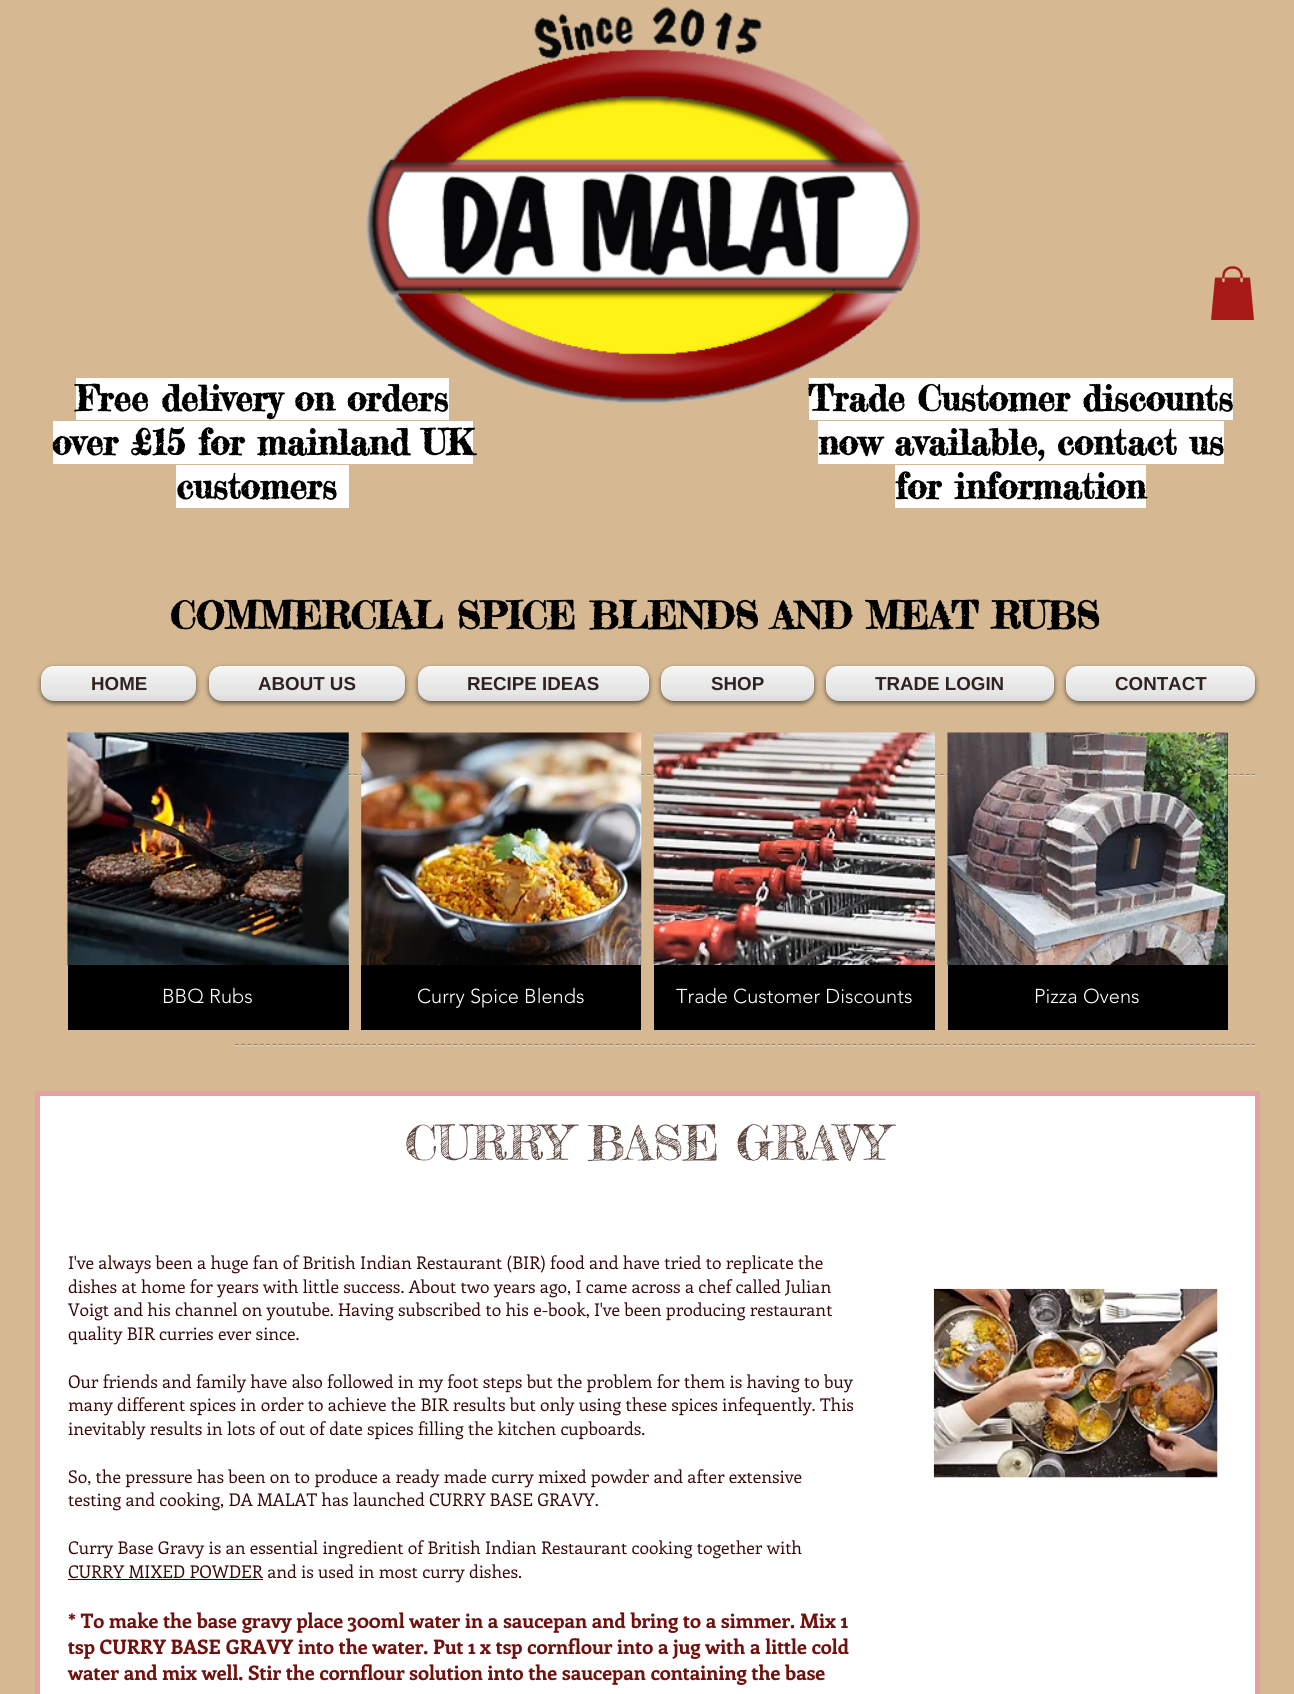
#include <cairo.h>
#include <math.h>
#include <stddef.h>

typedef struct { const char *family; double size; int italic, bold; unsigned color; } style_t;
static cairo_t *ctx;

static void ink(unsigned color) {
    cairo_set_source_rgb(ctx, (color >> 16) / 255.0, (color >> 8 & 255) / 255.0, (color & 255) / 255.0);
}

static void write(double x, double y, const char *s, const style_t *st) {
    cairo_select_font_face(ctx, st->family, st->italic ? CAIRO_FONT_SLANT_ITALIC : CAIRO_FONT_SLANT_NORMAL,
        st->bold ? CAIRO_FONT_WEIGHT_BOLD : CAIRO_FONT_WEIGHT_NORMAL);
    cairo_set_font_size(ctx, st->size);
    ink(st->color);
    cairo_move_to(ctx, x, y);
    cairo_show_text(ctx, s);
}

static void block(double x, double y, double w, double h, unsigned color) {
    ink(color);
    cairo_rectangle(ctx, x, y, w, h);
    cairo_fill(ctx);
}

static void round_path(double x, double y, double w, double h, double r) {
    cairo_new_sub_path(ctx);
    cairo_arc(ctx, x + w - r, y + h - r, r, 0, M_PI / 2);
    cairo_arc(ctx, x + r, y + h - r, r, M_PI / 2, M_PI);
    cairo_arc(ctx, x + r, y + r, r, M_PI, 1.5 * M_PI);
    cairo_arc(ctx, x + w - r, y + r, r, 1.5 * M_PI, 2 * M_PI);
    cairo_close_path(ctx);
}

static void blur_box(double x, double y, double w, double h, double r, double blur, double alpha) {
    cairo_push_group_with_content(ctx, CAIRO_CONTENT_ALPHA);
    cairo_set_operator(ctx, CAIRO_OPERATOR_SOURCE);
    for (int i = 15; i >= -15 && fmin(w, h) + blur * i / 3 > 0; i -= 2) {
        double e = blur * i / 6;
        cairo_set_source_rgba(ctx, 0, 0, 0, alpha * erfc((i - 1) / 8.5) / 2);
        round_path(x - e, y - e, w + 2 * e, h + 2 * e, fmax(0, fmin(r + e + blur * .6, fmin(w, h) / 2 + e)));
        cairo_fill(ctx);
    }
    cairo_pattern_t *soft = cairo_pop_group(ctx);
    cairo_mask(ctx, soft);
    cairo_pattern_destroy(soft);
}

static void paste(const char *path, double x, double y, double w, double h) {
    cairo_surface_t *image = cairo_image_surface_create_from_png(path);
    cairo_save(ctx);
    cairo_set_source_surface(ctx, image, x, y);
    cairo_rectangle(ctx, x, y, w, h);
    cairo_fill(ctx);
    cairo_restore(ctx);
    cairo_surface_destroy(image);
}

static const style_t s1 = {"Fredericka the Great", 35, 0, 1, 0x000000};
static const style_t s2 = {"Fredericka the Great", 37.5, 0, 1, 0x000000};
static const style_t s3 = {"Liberation Sans", 18.75, 0, 1, 0x2e231f};
static const style_t s4 = {"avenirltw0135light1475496 Light", 20, 0, 0, 0xffffff};
static const style_t s5 = {"Fredericka the Great", 47.5, 0, 0, 0x5d463e};
static const style_t s6 = {"Enriqueta", 17.5, 0, 0, 0x380807};
static const style_t s7 = {"Enriqueta", 20, 0, 1, 0x70110e};

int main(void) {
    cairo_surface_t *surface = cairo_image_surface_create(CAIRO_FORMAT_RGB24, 1294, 1694);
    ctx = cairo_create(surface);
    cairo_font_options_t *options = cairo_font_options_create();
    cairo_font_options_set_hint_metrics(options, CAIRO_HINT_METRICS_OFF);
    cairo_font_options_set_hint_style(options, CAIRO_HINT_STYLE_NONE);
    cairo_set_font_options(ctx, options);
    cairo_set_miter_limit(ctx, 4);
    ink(0xd6b993);
    cairo_paint(ctx);
    paste("pic1.png", 365, 6, 555, 398);
    paste("pic2.png", 1211, 266, 43, 54);
    block(76, 378, 373, 42, 0xffffff);
    write(76, 411, "Free delivery on orders", &s1);
    block(53, 421, 420, 43, 0xffffff);
    write(52, 455, "over £15 for mainland UK", &s1);
    block(176, 465, 173, 43, 0xffffff);
    write(176, 499, "customers", &s1);
    block(809, 378, 424, 42, 0xffffff);
    write(808, 411, "Trade Customer discounts", &s1);
    block(818, 421, 406, 43, 0xffffff);
    write(818, 455, "now available, contact us", &s1);
    block(895, 465, 251, 43, 0xffffff);
    write(895, 499, "for information", &s1);
    write(170, 629, "COMMERCIAL SPICE BLENDS AND MEAT RUBS", &s2);
    ink(0x000000);
    blur_box(41, 668, 155, 35, 13, 2.5, 0.6);
    ink(0xffffff);
    round_path(41, 666, 155, 35, 13);
    cairo_fill(ctx);
    paste("pic3.png", 41, 666, 155, 35);
    paste("pic4.png", 41, 667, 155, 34);
    write(91, 690, "HOME", &s3);
    ink(0x000000);
    blur_box(209, 668, 196, 35, 13, 2.5, 0.6);
    ink(0xffffff);
    round_path(209, 666, 196, 35, 13);
    cairo_fill(ctx);
    paste("pic5.png", 209, 666, 196, 35);
    paste("pic6.png", 209, 667, 196, 34);
    write(258, 690, "ABOUT US", &s3);
    ink(0x000000);
    blur_box(418, 668, 231, 35, 13, 2.5, 0.6);
    ink(0xffffff);
    round_path(418, 666, 231, 35, 13);
    cairo_fill(ctx);
    paste("pic7.png", 417, 666, 232, 35);
    paste("pic8.png", 417, 667, 232, 34);
    write(467, 690, "RECIPE IDEAS", &s3);
    ink(0x000000);
    blur_box(661, 668, 153, 35, 13, 2.5, 0.6);
    ink(0xffffff);
    round_path(661, 666, 153, 35, 13);
    cairo_fill(ctx);
    paste("pic9.png", 661, 666, 153, 35);
    paste("pic10.png", 661, 667, 153, 34);
    write(711, 690, "SHOP", &s3);
    ink(0x000000);
    blur_box(826, 668, 228, 35, 13, 2.5, 0.6);
    ink(0xffffff);
    round_path(826, 666, 228, 35, 13);
    cairo_fill(ctx);
    paste("pic11.png", 826, 666, 228, 35);
    paste("pic12.png", 826, 667, 228, 34);
    write(875, 690, "TRADE LOGIN", &s3);
    ink(0x000000);
    blur_box(1066, 668, 189, 35, 13, 2.5, 0.6);
    ink(0xffffff);
    round_path(1066, 666, 189, 35, 13);
    cairo_fill(ctx);
    paste("pic13.png", 1066, 666, 189, 35);
    paste("pic14.png", 1066, 667, 189, 34);
    write(1115, 690, "CONTACT", &s3);
    cairo_new_path(ctx);
    cairo_move_to(ctx, 235, 774.5);
    cairo_line_to(ctx, 1255, 774.5);
    ink(0x8b7860);
    cairo_set_line_width(ctx, 1.2);
    cairo_set_dash(ctx, (double[]){3.75, 2.49}, 2, 0);
    cairo_stroke(ctx);
    cairo_new_path(ctx);
    cairo_move_to(ctx, 235, 775.5);
    cairo_line_to(ctx, 1255, 775.5);
    cairo_set_source_rgba(ctx, 1, 1, 1, 0.5);
    cairo_stroke(ctx);
    paste("pic15.png", 67, 732, 282, 233);
    block(68, 965, 281, 65, 0x000000);
    write(162, 1003, "BBQ Rubs", &s4);
    paste("pic16.png", 361, 732, 281, 233);
    block(361, 965, 280, 65, 0x000000);
    write(417, 1003, "Curry Spice Blends", &s4);
    paste("pic17.png", 653, 732, 282, 233);
    block(654, 965, 281, 65, 0x000000);
    write(676, 1003, "Trade Customer Discounts", &s4);
    block(1227, 733, 1, 232, 0x2f2e2e);
    paste("pic18.png", 947, 732, 281, 233);
    block(948, 965, 280, 65, 0x000000);
    write(1034, 1003, "Pizza Ovens", &s4);
    cairo_new_path(ctx);
    cairo_move_to(ctx, 235, 1044.5);
    cairo_line_to(ctx, 1255, 1044.5);
    ink(0x8b7860);
    cairo_stroke(ctx);
    cairo_new_path(ctx);
    cairo_move_to(ctx, 235, 1045.5);
    cairo_line_to(ctx, 1255, 1045.5);
    cairo_set_source_rgba(ctx, 1, 1, 1, 0.5);
    cairo_stroke(ctx);
    ink(0xffffff);
    cairo_rectangle(ctx, 37.5, 1093.5, 1220, 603);
    cairo_fill_preserve(ctx);
    ink(0xe2a2a0);
    cairo_set_line_width(ctx, 5);
    cairo_set_dash(ctx, NULL, 0, 0);
    cairo_stroke(ctx);
    write(405, 1160, "CURRY BASE GRAVY", &s5);
    write(68, 1269, "I've always been a huge fan of British Indian Restaurant (BIR) food and have tried to replicate the", &s6);
    write(68, 1293, "dishes at home for years with little success. About two years ago, I came across a chef called Julian", &s6);
    write(68, 1316, "Voigt and his channel on youtube. Having subscribed to his e-book, I've been producing restaurant", &s6);
    write(68, 1340, "quality BIR curries ever since.", &s6);
    write(68, 1388, "Our friends and family have also followed in my foot steps but the problem for them is having to buy", &s6);
    write(68, 1411, "many different spices in order to achieve the BIR results but only using these spices infequently. This", &s6);
    write(68, 1435, "inevitably results in lots of out of date spices filling the kitchen cupboards.", &s6);
    write(68, 1483, "So, the pressure has been on to produce a ready made curry mixed powder and after extensive", &s6);
    write(68, 1506, "testing and cooking, DA MALAT has launched CURRY BASE GRAVY.", &s6);
    write(68, 1554, "Curry Base Gravy is an essential ingredient of British Indian Restaurant cooking together with", &s6);
    block(68, 1579, 195, 1, 0x380807);
    write(68, 1578, "CURRY MIXED POWDER and is used in most curry dishes.", &s6);
    write(68, 1628, "* To make the base gravy place 300ml water in a saucepan and bring to a simmer. Mix 1", &s7);
    write(68, 1654, "tsp CURRY BASE GRAVY into the water. Put 1 x tsp cornflour into a jug with a little cold", &s7);
    write(68, 1680, "water and mix well. Stir the cornflour solution into the saucepan containing the base", &s7);
    paste("pic19.png", 933, 1288, 285, 190);
    cairo_surface_write_to_png(surface, "screenshot.png");
    cairo_font_options_destroy(options);
    cairo_destroy(ctx);
    cairo_surface_destroy(surface);
    return 0;
}
